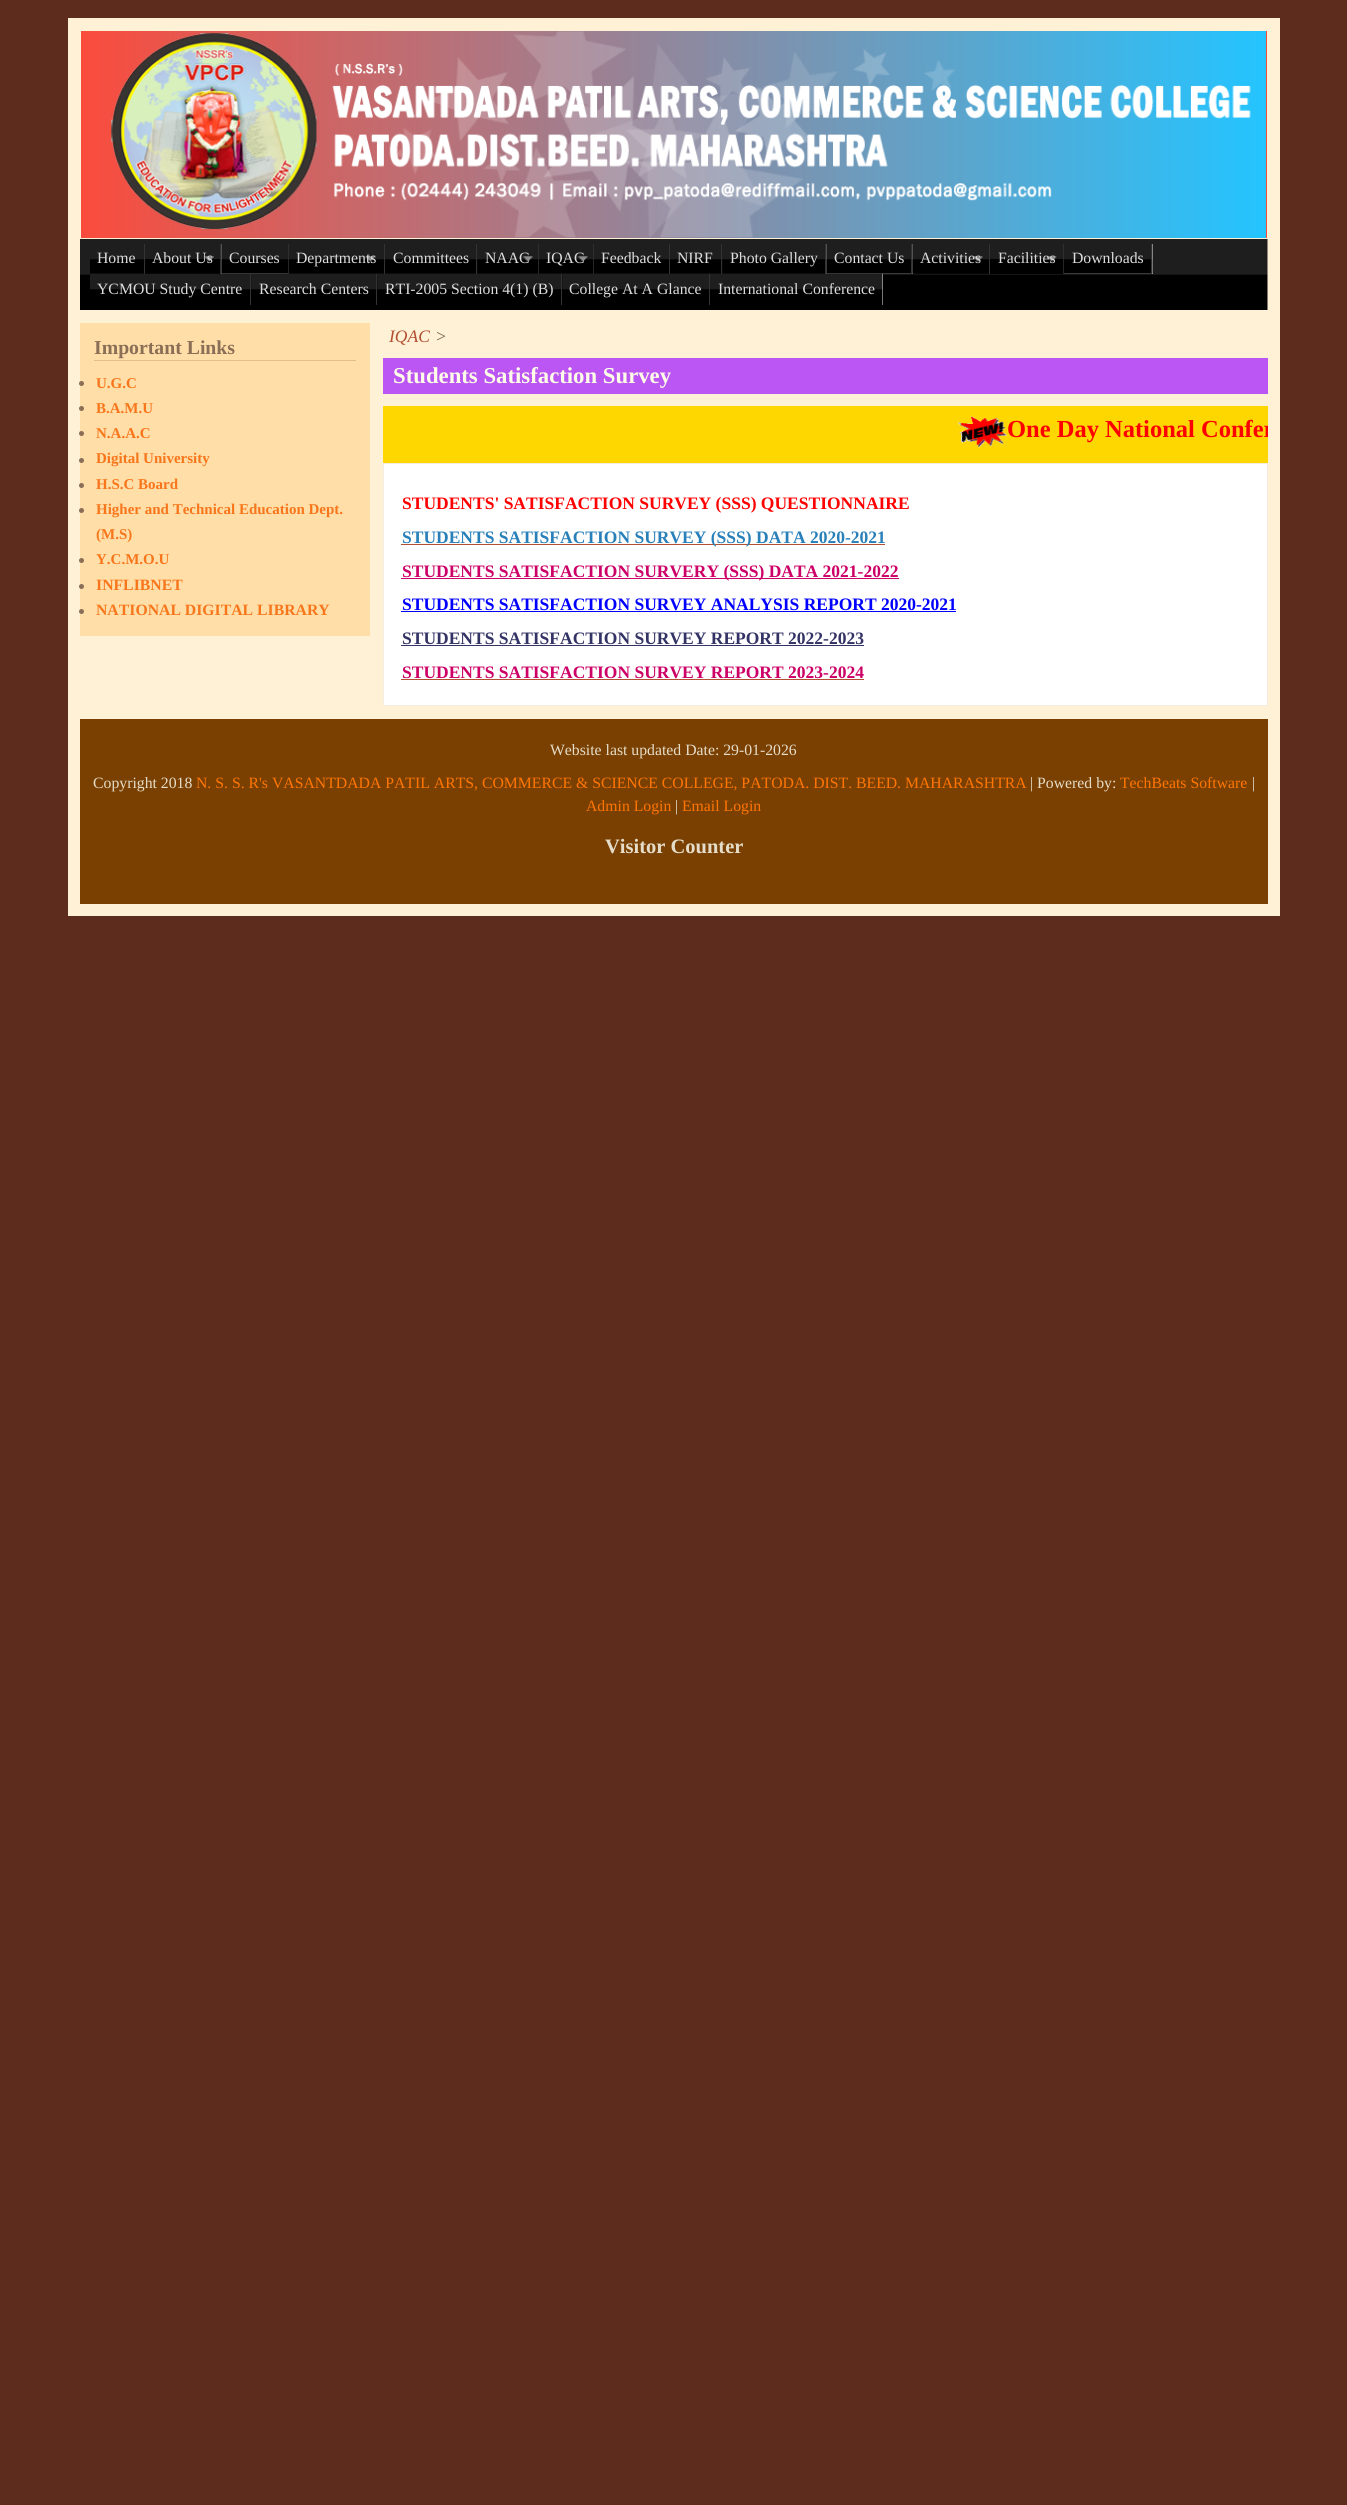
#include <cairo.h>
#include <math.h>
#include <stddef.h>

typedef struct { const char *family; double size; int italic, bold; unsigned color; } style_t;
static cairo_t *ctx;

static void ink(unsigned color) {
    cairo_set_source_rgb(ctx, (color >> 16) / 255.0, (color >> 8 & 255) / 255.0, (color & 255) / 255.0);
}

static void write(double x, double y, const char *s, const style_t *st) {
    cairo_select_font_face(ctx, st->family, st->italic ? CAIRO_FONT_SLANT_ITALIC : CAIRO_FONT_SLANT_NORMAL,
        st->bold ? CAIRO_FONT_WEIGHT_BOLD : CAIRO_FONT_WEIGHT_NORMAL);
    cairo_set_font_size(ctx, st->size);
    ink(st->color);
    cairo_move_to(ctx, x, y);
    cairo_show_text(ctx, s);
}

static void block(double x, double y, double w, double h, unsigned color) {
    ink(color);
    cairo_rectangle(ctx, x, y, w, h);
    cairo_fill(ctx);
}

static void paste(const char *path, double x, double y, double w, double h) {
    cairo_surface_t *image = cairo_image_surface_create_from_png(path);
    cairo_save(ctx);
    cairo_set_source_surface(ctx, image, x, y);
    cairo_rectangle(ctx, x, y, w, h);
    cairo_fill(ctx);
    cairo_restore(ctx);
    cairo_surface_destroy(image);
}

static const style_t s1 = {"Liberation Serif", 15.75, 0, 0, 0xdddddd};
static const style_t s2 = {"Liberation Serif", 19.75, 0, 1, 0x8a6e56};
static const style_t s3 = {"Liberation Serif", 15, 0, 1, 0xf8761b};
static const style_t s4 = {"Liberation Serif", 15.75, 0, 1, 0xf8761b};
static const style_t s5 = {"Liberation Serif", 17.5, 1, 0, 0xb34f32};
static const style_t s6 = {"Liberation Serif", 17.5, 1, 0, 0x685c4a};
static const style_t s7 = {"Liberation Serif", 22.75, 0, 1, 0xfffde8};
static const style_t s8 = {"Liberation Serif", 24.5, 0, 1, 0xff0000};
static const style_t s9 = {"Liberation Serif", 17.5, 0, 1, 0xff0000};
static const style_t s10 = {"Liberation Serif", 17.5, 0, 1, 0x2980b9};
static const style_t s11 = {"Liberation Serif", 17.5, 0, 1, 0xcc0066};
static const style_t s12 = {"Liberation Serif", 17.5, 0, 1, 0x0000ff};
static const style_t s13 = {"Liberation Serif", 17.5, 0, 1, 0x333366};
static const style_t s14 = {"Liberation Serif", 15.75, 0, 0, 0xe5ddca};
static const style_t s15 = {"Liberation Serif", 15.75, 0, 0, 0xff7505};
static const style_t s16 = {"Liberation Serif", 20.5, 0, 1, 0xe5ddca};

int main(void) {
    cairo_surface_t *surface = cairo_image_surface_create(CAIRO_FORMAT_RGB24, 1347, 2505);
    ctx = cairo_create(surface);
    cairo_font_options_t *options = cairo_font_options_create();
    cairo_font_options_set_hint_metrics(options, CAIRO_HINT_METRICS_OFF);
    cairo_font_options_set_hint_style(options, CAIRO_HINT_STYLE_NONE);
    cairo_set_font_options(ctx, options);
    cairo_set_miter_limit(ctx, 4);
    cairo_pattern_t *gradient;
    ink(0x5d2c1c);
    cairo_paint(ctx);
    block(68, 18, 1212, 898, 0xfff1d6);
    block(1266, 31, 1, 207, 0xfa4c3d);
    gradient = cairo_pattern_create_linear(81, 31, 1266, 31);
    cairo_pattern_add_color_stop_rgba(gradient, 0, 0.98, 0.298, 0.239, 1);
    cairo_pattern_add_color_stop_rgba(gradient, 1, 0.141, 0.769, 1, 1);
    cairo_set_source(ctx, gradient);
    cairo_pattern_destroy(gradient);
    cairo_rectangle(ctx, 81, 31, 1185, 207);
    cairo_fill(ctx);
    paste("pic1.png", 396, 31, 559, 207);
    paste("pic2.png", 111, 33, 1140, 197);
    paste("pic3.png", 80, 239, 1188, 71);
    paste("pic4.png", 90, 244, 54, 30);
    block(144, 244, 1, 30, 0x333333);
    write(97, 263, "Home", &s1);
    block(145, 259, 75, 15, 0x000000);
    paste("pic5.png", 203, 256, 11, 6);
    block(220, 244, 1, 30, 0x333333);
    write(152, 263, "About Us", &s1);
    block(221, 244, 67, 30, 0xeeeeee);
    paste("pic6.png", 221, 244, 67, 30);
    block(288, 244, 1, 30, 0x333333);
    write(229, 263, "Courses", &s1);
    paste("pic7.png", 288, 244, 96, 30);
    paste("pic8.png", 365, 256, 10, 6);
    block(384, 244, 1, 30, 0x333333);
    write(296, 263, "Departments", &s1);
    paste("pic9.png", 385, 244, 93, 30);
    block(476, 244, 1, 30, 0x333333);
    write(393, 263, "Committees", &s1);
    paste("pic10.png", 477, 244, 61, 30);
    paste("pic11.png", 522, 256, 11, 6);
    block(538, 244, 1, 30, 0x333333);
    write(485, 263, "NAAC", &s1);
    paste("pic12.png", 538, 244, 55, 30);
    paste("pic13.png", 577, 256, 11, 6);
    block(593, 244, 1, 30, 0x333333);
    write(546, 263, "IQAC", &s1);
    paste("pic14.png", 593, 244, 76, 30);
    block(669, 244, 1, 30, 0x333333);
    write(601, 263, "Feedback", &s1);
    paste("pic15.png", 670, 244, 53, 30);
    block(721, 244, 1, 30, 0x333333);
    write(677, 263, "NIRF", &s1);
    paste("pic16.png", 722, 244, 103, 30);
    block(825, 244, 1, 30, 0x333333);
    write(730, 263, "Photo Gallery", &s1);
    block(826, 244, 87, 30, 0xeeeeee);
    paste("pic17.png", 826, 244, 87, 30);
    block(911, 244, 1, 30, 0x333333);
    write(834, 263, "Contact Us", &s1);
    paste("pic18.png", 912, 244, 77, 30);
    paste("pic13.png", 972, 256, 11, 6);
    block(989, 244, 1, 30, 0x333333);
    write(920, 263, "Activities", &s1);
    block(990, 259, 73, 15, 0x000000);
    paste("pic19.png", 1046, 256, 11, 6);
    block(1063, 244, 1, 30, 0x333333);
    write(998, 263, "Facilities", &s1);
    block(1064, 244, 89, 30, 0xeeeeee);
    paste("pic20.png", 1063, 244, 90, 30);
    block(1151, 244, 1, 30, 0x333333);
    write(1072, 263, "Downloads", &s1);
    paste("pic21.png", 90, 273, 162, 32);
    block(250, 274, 1, 31, 0x333333);
    write(97, 294, "YCMOU Study Centre", &s1);
    paste("pic22.png", 251, 273, 127, 32);
    block(376, 274, 1, 31, 0x333333);
    write(259, 294, "Research Centers", &s1);
    paste("pic23.png", 377, 273, 186, 32);
    block(561, 274, 1, 31, 0x333333);
    write(385, 294, "RTI-2005 Section 4(1) (B)", &s1);
    paste("pic24.png", 562, 273, 148, 32);
    block(709, 274, 1, 31, 0x333333);
    write(569, 294, "College At A Glance", &s1);
    block(882, 274, 1, 31, 0xeeeeee);
    paste("pic25.png", 710, 273, 173, 32);
    write(718, 294, "International Conference", &s1);
    block(80, 323, 290, 313, 0xffdea8);
    block(94, 360, 262, 1, 0xe5be8b);
    write(94, 354, "Important Links", &s2);
    cairo_new_path(ctx);
    cairo_arc(ctx, 81.5, 383.5, 2.5, 0, 2 * M_PI);
    cairo_fill(ctx);
    write(96, 388, "U.G.C", &s3);
    ink(0x8a6e56);
    cairo_new_path(ctx);
    cairo_arc(ctx, 81.5, 408.5, 2.5, 0, 2 * M_PI);
    cairo_fill(ctx);
    write(96, 413, "B.A.M.U", &s3);
    ink(0x8a6e56);
    cairo_new_path(ctx);
    cairo_arc(ctx, 81.5, 433.5, 2.5, 0, 2 * M_PI);
    cairo_fill(ctx);
    write(96, 438, "N.A.A.C", &s3);
    ink(0x8a6e56);
    cairo_new_path(ctx);
    cairo_arc(ctx, 81.5, 460.5, 2.5, 0, 2 * M_PI);
    cairo_fill(ctx);
    write(96, 463, "Digital University", &s3);
    ink(0x8a6e56);
    cairo_new_path(ctx);
    cairo_arc(ctx, 81.5, 485.5, 2.5, 0, 2 * M_PI);
    cairo_fill(ctx);
    write(96, 489, "H.S.C Board", &s3);
    ink(0x8a6e56);
    cairo_new_path(ctx);
    cairo_arc(ctx, 81.5, 510.5, 2.5, 0, 2 * M_PI);
    cairo_fill(ctx);
    write(96, 514, "Higher and Technical Education Dept.", &s3);
    write(96, 539, "(M.S)", &s3);
    ink(0x8a6e56);
    cairo_new_path(ctx);
    cairo_arc(ctx, 81.5, 560.5, 2.5, 0, 2 * M_PI);
    cairo_fill(ctx);
    write(96, 564, "Y.C.M.O.U", &s3);
    ink(0x8a6e56);
    cairo_new_path(ctx);
    cairo_arc(ctx, 81.5, 586.5, 2.5, 0, 2 * M_PI);
    cairo_fill(ctx);
    write(96, 590, "INFLIBNET", &s4);
    ink(0x8a6e56);
    cairo_new_path(ctx);
    cairo_arc(ctx, 81.5, 611.5, 2.5, 0, 2 * M_PI);
    cairo_fill(ctx);
    write(96, 615, "NATIONAL DIGITAL LIBRARY", &s4);
    write(389, 342, "IQAC", &s5);
    write(435, 342, ">", &s6);
    block(383, 358, 885, 36, 0xbb55f4);
    write(393, 383, "Students Satisfaction Survey", &s7);
    block(383, 406, 885, 57, 0xffd700);
    paste("pic26.png", 957, 416, 50, 32);
    cairo_save(ctx);
    cairo_rectangle(ctx, 383, 416, 885, 38);
    cairo_clip(ctx);
    write(1007, 437, "One Day National Confer", &s8);
    cairo_restore(ctx);
    ink(0xffffff);
    cairo_rectangle(ctx, 383.5, 463.5, 884, 242);
    cairo_fill_preserve(ctx);
    ink(0xf5ede0);
    cairo_set_line_width(ctx, 1);
    cairo_stroke(ctx);
    write(402, 509, "STUDENTS' SATISFACTION SURVEY (SSS) QUESTIONNAIRE", &s9);
    block(401, 544, 484, 1, 0xb34f32);
    write(402, 543, "STUDENTS SATISFACTION SURVEY (SSS) DATA 2020-2021", &s10);
    block(401, 578, 498, 1, 0xcc0066);
    write(402, 577, "STUDENTS SATISFACTION SURVERY (SSS) DATA 2021-2022", &s11);
    write(402, 610, "STUDENTS SATISFACTION SURVEY ANALYSIS REPORT 2020-2021", &s12);
    block(401, 611, 555, 1, 0x0000ff);
    write(402, 644, "STUDENTS SATISFACTION SURVEY REPORT 2022-2023", &s13);
    block(401, 645, 463, 1, 0x333366);
    write(402, 678, "STUDENTS SATISFACTION SURVEY REPORT 2023-2024", &s11);
    block(401, 679, 463, 1, 0xb34f32);
    block(80, 719, 1188, 185, 0x7a4001);
    write(550, 755, "Website last updated Date: 29-01-2026", &s14);
    write(93, 788, "Copyright 2018", &s14);
    write(196, 788, "N. S. S. R's VASANTDADA PATIL ARTS, COMMERCE & SCIENCE COLLEGE, PATODA. DIST. BEED. MAHARASHTRA", &s15);
    write(1030, 788, "| Powered by:", &s14);
    write(1120, 788, "TechBeats Software", &s15);
    write(1252, 788, "|", &s14);
    write(586, 811, "Admin Login", &s15);
    write(675, 811, "|", &s14);
    write(682, 811, "Email Login", &s15);
    write(605, 853, "Visitor Counter", &s16);
    cairo_surface_write_to_png(surface, "screenshot.png");
    cairo_font_options_destroy(options);
    cairo_destroy(ctx);
    cairo_surface_destroy(surface);
    return 0;
}
